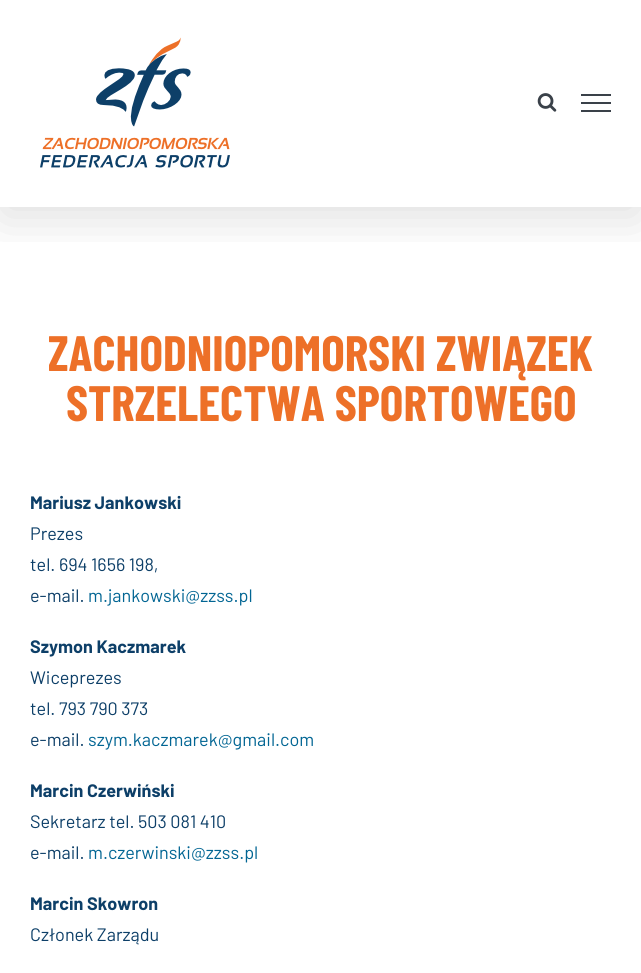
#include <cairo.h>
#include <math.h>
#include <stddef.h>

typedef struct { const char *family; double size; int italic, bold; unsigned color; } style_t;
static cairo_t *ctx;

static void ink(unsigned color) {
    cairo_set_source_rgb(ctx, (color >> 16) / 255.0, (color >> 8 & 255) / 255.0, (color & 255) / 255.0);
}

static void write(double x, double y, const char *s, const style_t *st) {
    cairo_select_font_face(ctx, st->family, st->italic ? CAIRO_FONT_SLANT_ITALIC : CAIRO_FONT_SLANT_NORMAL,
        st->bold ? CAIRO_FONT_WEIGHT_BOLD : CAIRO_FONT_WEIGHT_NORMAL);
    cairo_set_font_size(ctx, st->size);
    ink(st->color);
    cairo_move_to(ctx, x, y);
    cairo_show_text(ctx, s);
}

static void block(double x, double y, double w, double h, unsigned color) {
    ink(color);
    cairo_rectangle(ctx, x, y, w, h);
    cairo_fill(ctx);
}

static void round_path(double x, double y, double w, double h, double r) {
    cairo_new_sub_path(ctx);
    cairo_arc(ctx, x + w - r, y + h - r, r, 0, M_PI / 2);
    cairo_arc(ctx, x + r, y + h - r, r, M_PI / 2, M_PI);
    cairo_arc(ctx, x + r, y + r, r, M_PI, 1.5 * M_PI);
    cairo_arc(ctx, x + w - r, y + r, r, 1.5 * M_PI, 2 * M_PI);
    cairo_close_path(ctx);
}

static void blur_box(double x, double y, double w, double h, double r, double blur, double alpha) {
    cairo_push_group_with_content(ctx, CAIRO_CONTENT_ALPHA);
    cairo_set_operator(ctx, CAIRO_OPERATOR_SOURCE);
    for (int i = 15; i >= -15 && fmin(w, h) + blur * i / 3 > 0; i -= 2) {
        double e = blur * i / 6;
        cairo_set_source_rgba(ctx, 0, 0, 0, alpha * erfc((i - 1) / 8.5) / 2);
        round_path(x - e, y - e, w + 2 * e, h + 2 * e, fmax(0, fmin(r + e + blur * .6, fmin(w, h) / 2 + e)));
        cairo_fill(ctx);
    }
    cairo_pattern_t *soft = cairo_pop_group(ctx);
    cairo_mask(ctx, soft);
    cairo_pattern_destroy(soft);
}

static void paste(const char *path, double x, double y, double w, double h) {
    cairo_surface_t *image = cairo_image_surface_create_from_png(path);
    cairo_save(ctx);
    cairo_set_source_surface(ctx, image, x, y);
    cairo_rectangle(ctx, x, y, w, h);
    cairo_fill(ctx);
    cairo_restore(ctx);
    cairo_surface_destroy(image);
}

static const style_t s1 = {"Barlow Condensed", 49.75, 0, 1, 0xed7028};
static const style_t s2 = {"Barlow", 18, 0, 1, 0x0d3f68};
static const style_t s3 = {"Barlow", 18, 0, 0, 0x0d3f68};
static const style_t s4 = {"Barlow", 18, 0, 0, 0x016593};

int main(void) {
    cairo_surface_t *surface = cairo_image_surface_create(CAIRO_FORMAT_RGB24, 641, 973);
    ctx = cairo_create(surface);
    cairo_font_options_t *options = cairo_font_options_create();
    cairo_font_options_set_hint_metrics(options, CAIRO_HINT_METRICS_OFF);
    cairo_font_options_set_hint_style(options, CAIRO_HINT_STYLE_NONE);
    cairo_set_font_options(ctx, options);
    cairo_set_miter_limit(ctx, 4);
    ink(0xffffff);
    cairo_paint(ctx);
    cairo_save(ctx);
    cairo_rectangle(ctx, 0, 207, 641, 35);
    cairo_clip(ctx);
    ink(0x000000);
    blur_box(2, 12, 637, 203, 0, 25, 0.14);
    cairo_restore(ctx);
    paste("pic1.png", 40, 37, 190, 131);
    paste("pic2.png", 537, 93, 20, 19);
    block(581, 94, 30, 2, 0x3a4149);
    block(581, 102, 30, 2, 0x3a4149);
    block(581, 110, 30, 2, 0x3a4149);
    write(48, 371, "ZACHODNIOPOMORSKI ZWIĄZEK", &s1);
    write(66, 421, "STRZELECTWA SPORTOWEGO", &s1);
    write(30, 509, "Mariusz Jankowski", &s2);
    write(30, 540, "Prezes", &s3);
    write(30, 571, "tel. 694 1656 198,", &s3);
    write(30, 602, "e-mail.", &s3);
    write(88, 602, "m.jankowski@zzss.pl", &s4);
    write(30, 653, "Szymon Kaczmarek", &s2);
    write(30, 684, "Wiceprezes", &s3);
    write(30, 715, "tel. 793 790 373", &s3);
    write(30, 746, "e-mail.", &s3);
    write(88, 746, "szym.kaczmarek@gmail.com", &s4);
    write(30, 797, "Marcin Czerwiński", &s2);
    write(30, 828, "Sekretarz tel. 503 081 410", &s3);
    write(30, 859, "e-mail.", &s3);
    write(88, 859, "m.czerwinski@zzss.pl", &s4);
    write(30, 910, "Marcin Skowron", &s2);
    write(30, 941, "Członek Zarządu", &s3);
    cairo_surface_write_to_png(surface, "screenshot.png");
    cairo_font_options_destroy(options);
    cairo_destroy(ctx);
    cairo_surface_destroy(surface);
    return 0;
}
